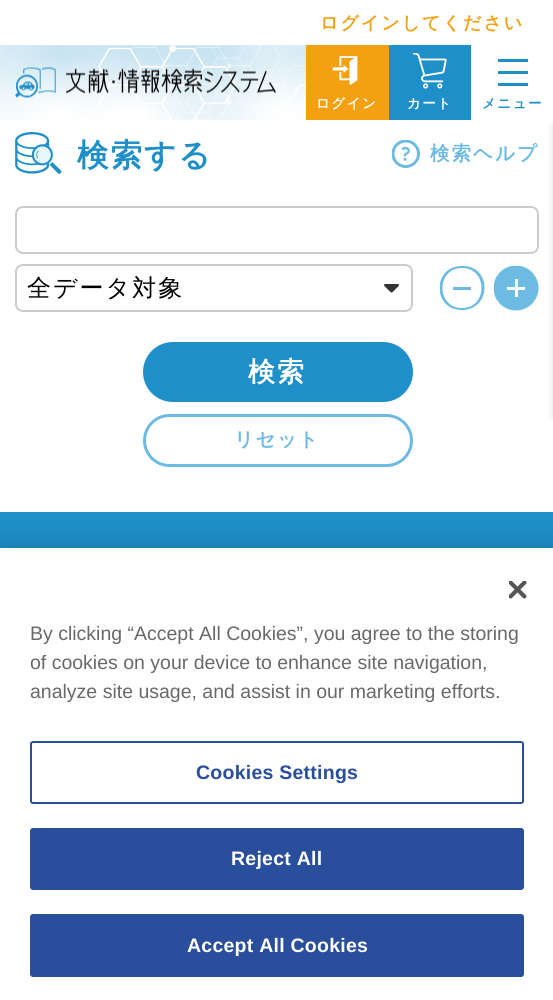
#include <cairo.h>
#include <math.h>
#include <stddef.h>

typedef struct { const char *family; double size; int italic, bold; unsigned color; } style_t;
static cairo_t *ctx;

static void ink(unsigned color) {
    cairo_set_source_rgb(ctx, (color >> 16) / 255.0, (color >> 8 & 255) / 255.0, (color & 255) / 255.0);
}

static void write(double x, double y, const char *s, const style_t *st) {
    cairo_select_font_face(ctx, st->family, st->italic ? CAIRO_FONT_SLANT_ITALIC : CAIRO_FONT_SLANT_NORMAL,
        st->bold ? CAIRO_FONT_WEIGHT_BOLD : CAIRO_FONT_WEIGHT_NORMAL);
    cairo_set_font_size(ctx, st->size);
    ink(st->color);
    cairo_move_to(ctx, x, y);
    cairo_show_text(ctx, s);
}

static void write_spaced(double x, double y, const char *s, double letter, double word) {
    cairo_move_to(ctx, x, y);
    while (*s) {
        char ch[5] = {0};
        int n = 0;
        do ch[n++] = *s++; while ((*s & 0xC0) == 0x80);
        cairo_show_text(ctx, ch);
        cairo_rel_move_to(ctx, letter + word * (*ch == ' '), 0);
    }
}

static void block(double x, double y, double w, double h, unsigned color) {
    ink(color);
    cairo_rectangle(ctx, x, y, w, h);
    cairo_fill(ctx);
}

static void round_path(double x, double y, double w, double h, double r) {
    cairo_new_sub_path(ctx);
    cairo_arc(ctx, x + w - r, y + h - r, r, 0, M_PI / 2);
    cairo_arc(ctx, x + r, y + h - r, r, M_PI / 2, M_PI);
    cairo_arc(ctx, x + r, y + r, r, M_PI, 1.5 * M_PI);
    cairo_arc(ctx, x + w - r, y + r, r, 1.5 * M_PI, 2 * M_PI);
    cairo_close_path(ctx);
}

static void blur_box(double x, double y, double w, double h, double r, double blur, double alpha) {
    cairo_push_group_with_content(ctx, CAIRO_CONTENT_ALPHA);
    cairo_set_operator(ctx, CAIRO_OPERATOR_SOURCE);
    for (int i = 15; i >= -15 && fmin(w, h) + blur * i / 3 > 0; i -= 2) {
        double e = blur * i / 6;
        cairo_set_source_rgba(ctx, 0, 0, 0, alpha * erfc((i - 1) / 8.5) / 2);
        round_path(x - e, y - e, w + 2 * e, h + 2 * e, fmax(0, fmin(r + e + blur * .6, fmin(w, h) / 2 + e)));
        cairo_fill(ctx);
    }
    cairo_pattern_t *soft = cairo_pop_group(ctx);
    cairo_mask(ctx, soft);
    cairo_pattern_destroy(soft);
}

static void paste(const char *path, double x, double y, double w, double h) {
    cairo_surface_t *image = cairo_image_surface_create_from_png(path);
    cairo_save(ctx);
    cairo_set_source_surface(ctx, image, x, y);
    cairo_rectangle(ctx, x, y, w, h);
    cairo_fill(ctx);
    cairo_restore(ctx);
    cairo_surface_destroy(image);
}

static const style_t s1 = {"Liberation Sans", 19.5, 0, 0, 0x696969};

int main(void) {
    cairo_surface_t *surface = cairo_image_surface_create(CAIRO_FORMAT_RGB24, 553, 1000);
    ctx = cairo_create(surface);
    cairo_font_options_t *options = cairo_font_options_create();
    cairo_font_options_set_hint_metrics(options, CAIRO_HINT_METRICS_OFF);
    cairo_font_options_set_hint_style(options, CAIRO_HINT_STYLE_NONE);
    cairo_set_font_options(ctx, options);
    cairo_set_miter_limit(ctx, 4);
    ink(0xffffff);
    cairo_paint(ctx);
    cairo_select_font_face(ctx, "WenQuanYi Zen Hei", CAIRO_FONT_SLANT_NORMAL, CAIRO_FONT_WEIGHT_BOLD);
    cairo_set_font_size(ctx, 18);
    ink(0xf3a112);
    write_spaced(320, 29, "ログインしてください", 2, 0);
    paste("pic1.png", 0, 45, 306, 75);
    paste("pic2.png", 15, 67, 261, 31);
    block(306, 45, 83, 75, 0xf3a112);
    paste("pic3.png", 332, 56, 26, 29);
    cairo_set_font_size(ctx, 13.5);
    ink(0xffffff);
    write_spaced(316, 108, "ログイン", 1.5, 0);
    block(389, 45, 82, 75, 0x1e8fc8);
    paste("pic4.png", 413, 53, 34, 36);
    ink(0xffffff);
    write_spaced(407, 108, "カート", 1.5, 0);
    block(498, 59, 30, 3, 0x1e8fc8);
    block(498, 71, 30, 3, 0x1e8fc8);
    block(498, 83, 30, 3, 0x1e8fc8);
    write_spaced(482, 108, "メニュー", 1.5, 0);
    ink(0x000000);
    blur_box(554, 125, 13, 291, 0, 4.5, 0.16);
    paste("pic5.png", 15, 132, 47, 42);
    cairo_set_font_size(ctx, 31.5);
    ink(0x1e8fc8);
    write_spaced(77, 166, "検索する", 2, 0);
    paste("pic6.png", 392, 140, 28, 28);
    cairo_set_font_size(ctx, 19.5);
    ink(0x6dbbe2);
    write_spaced(430, 160, "検索ヘルプ", 2, 0);
    round_path(16, 207, 522, 46, 7);
    ink(0xcccccc);
    cairo_stroke(ctx);
    paste("pic7.png", 384, 284, 15, 9);
    round_path(16, 265, 396, 46, 7);
    cairo_stroke(ctx);
    cairo_select_font_face(ctx, "WenQuanYi Zen Hei Medium", CAIRO_FONT_SLANT_NORMAL, CAIRO_FONT_WEIGHT_NORMAL);
    cairo_set_font_size(ctx, 24);
    ink(0x000000);
    write_spaced(27, 296, "全データ対象", 2, 0);
    cairo_save(ctx);
    cairo_rectangle(ctx, 440, 266, 45, 45);
    cairo_clip(ctx);
    ink(0x6dbbe2);
    cairo_new_path(ctx);
    cairo_move_to(ctx, 462, 310);
    cairo_curve_to(ctx, 432, 310, 432, 266, 462, 266);
    cairo_curve_to(ctx, 492, 265, 492, 310, 462, 310);
    cairo_close_path(ctx);
    cairo_move_to(ctx, 462, 268);
    cairo_curve_to(ctx, 436, 268, 436, 308, 462, 308);
    cairo_curve_to(ctx, 488, 308, 488, 268, 462, 268);
    cairo_close_path(ctx);
    cairo_fill(ctx);
    cairo_restore(ctx);
    block(453, 287, 18, 3, 0x6dbbe2);
    cairo_save(ctx);
    cairo_rectangle(ctx, 494, 266, 45, 45);
    cairo_clip(ctx);
    cairo_arc(ctx, 516, 288, 22.5, 0, 2 * M_PI);
    cairo_fill(ctx);
    cairo_restore(ctx);
    block(507, 287, 18, 3, 0xffffff);
    block(515, 279, 3, 18, 0xffffff);
    ink(0x1e8fc8);
    round_path(143, 342, 270, 60, 30);
    cairo_fill(ctx);
    cairo_select_font_face(ctx, "WenQuanYi Zen Hei", CAIRO_FONT_SLANT_NORMAL, CAIRO_FONT_WEIGHT_BOLD);
    cairo_set_font_size(ctx, 27);
    ink(0xffffff);
    write_spaced(248, 381, "検索", 2, 0);
    round_path(144.5, 415.5, 267, 50, 25);
    ink(0x6dbbe2);
    cairo_set_line_width(ctx, 3);
    cairo_stroke(ctx);
    cairo_set_font_size(ctx, 19.5);
    write_spaced(234, 446, "リセット", 1.5, 0);
    block(0, 512, 553, 36, 0x1e8fc8);
    ink(0x000000);
    blur_box(0, 548, 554, 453, 0, 13.5, 0.2);
    block(0, 548, 553, 452, 0xffffff);
    paste("pic8.png", 509, 581, 18, 18);
    write(30, 640, "By clicking “Accept All Cookies”, you agree to the storing", &s1);
    write(30, 669, "of cookies on your device to enhance site navigation,", &s1);
    write(30, 698, "analyze site usage, and assist in our marketing efforts.", &s1);
    round_path(31, 742, 492, 61, 2);
    ink(0x294e9c);
    cairo_set_line_width(ctx, 2);
    cairo_stroke(ctx);
    cairo_select_font_face(ctx, "Liberation Sans", CAIRO_FONT_SLANT_NORMAL, CAIRO_FONT_WEIGHT_BOLD);
    write_spaced(196, 779, "Cookies Settings", 0.25, 0);
    round_path(31, 829, 492, 60, 2);
    cairo_fill_preserve(ctx);
    cairo_stroke(ctx);
    ink(0xffffff);
    write_spaced(231, 865, "Reject All", 0.25, 0);
    ink(0x294e9c);
    round_path(31, 915, 492, 61, 2);
    cairo_fill_preserve(ctx);
    cairo_stroke(ctx);
    ink(0xffffff);
    write_spaced(187, 952, "Accept All Cookies", 0.25, 0);
    cairo_surface_write_to_png(surface, "screenshot.png");
    cairo_font_options_destroy(options);
    cairo_destroy(ctx);
    cairo_surface_destroy(surface);
    return 0;
}
